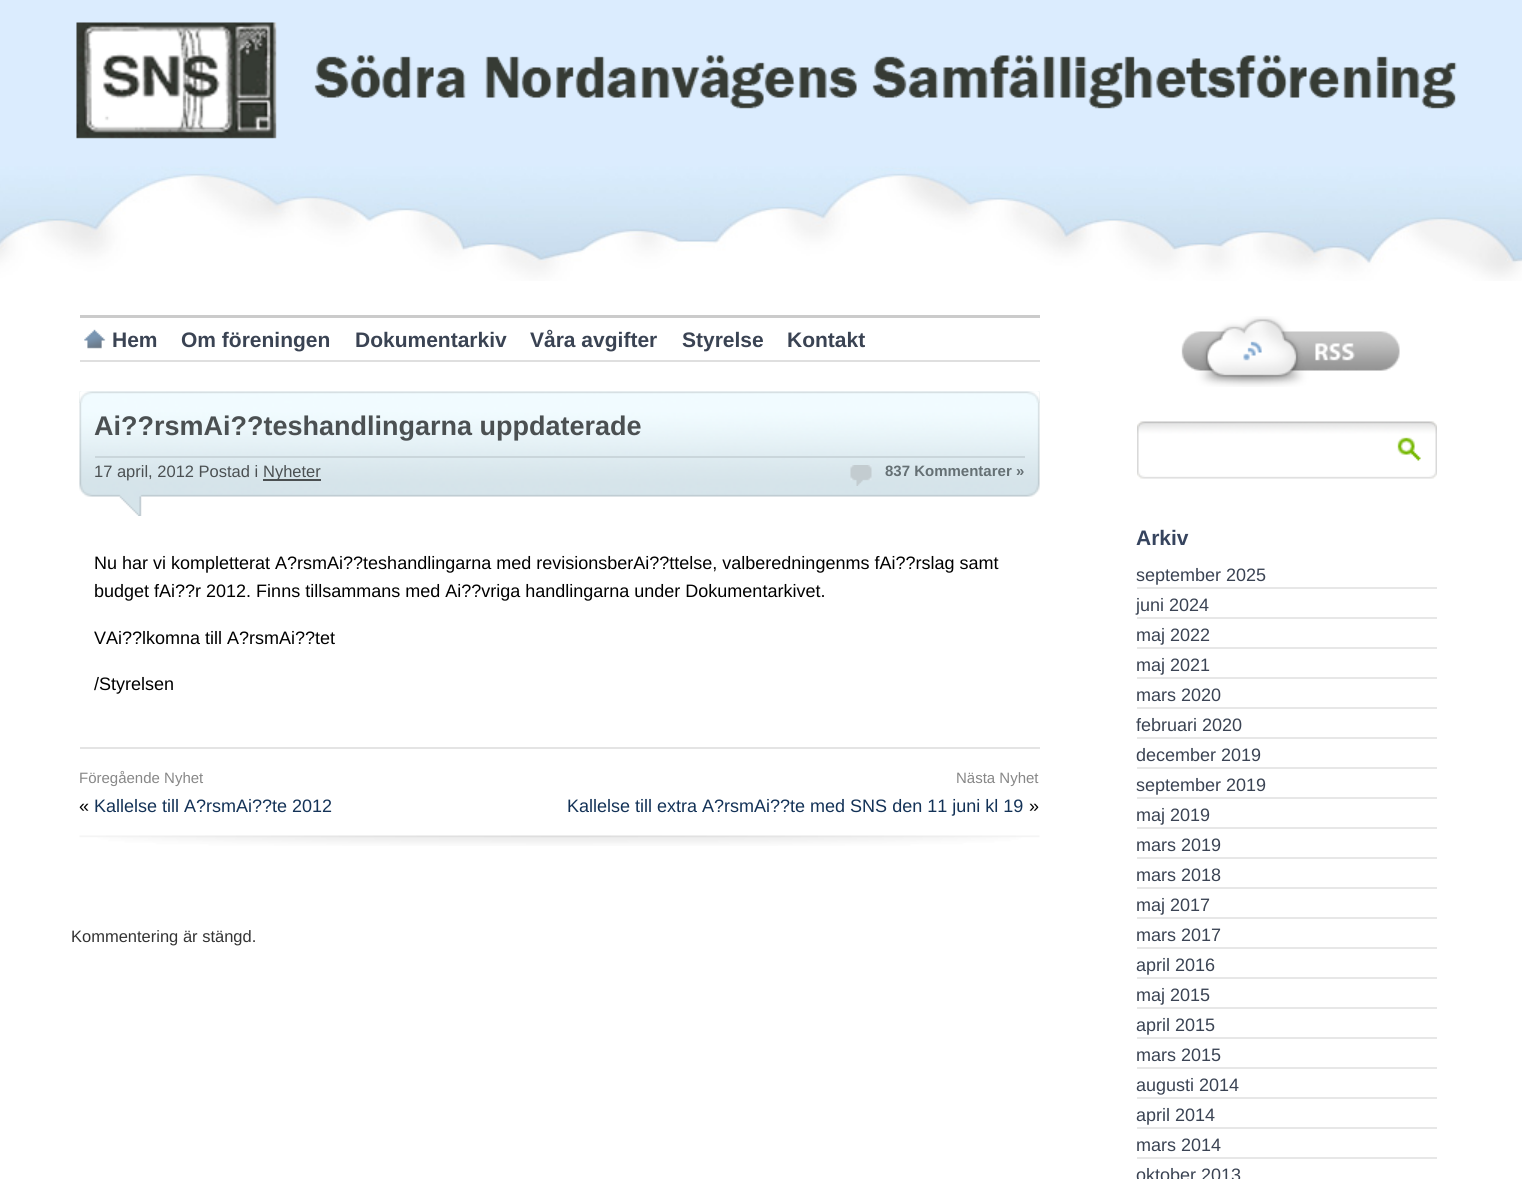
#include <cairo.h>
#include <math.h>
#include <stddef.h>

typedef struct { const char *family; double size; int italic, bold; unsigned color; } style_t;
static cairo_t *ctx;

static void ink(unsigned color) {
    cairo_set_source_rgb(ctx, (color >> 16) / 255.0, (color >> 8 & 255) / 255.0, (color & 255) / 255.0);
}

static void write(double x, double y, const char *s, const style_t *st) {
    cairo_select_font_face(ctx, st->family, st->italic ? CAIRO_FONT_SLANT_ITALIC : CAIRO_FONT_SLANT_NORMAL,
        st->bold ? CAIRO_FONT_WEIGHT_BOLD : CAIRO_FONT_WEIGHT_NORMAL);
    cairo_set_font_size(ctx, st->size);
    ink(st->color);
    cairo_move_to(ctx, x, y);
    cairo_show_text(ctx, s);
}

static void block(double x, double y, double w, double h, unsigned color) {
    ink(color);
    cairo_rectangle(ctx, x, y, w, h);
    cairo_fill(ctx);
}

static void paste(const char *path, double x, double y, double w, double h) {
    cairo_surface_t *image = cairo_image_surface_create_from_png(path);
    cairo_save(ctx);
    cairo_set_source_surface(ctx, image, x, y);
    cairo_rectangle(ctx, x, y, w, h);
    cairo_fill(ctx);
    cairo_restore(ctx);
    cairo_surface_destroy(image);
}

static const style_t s1 = {"Liberation Sans", 21, 0, 1, 0x3a4353};
static const style_t s2 = {"Liberation Sans", 27, 0, 1, 0x4b5052};
static const style_t s3 = {"Liberation Sans", 16.5, 0, 0, 0x4b5052};
static const style_t s4 = {"Liberation Sans", 15, 0, 1, 0x657074};
static const style_t s5 = {"Liberation Sans", 18, 0, 0, 0x000000};
static const style_t s6 = {"Liberation Sans", 15, 0, 0, 0x878787};
static const style_t s7 = {"Liberation Sans", 18, 0, 0, 0x133257};
static const style_t s8 = {"Liberation Sans", 16.5, 0, 0, 0x333333};
static const style_t s9 = {"Liberation Sans", 21, 0, 1, 0x36445e};
static const style_t s10 = {"Liberation Sans", 18, 0, 0, 0x3a4353};

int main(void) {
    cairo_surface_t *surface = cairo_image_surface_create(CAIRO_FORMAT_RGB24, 1522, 1179);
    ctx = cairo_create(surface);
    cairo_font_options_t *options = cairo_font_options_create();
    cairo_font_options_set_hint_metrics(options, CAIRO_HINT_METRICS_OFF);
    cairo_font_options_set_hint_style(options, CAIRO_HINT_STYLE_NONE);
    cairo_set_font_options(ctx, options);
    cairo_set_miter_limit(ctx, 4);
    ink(0xffffff);
    cairo_paint(ctx);
    paste("pic1.png", 0, 0, 1522, 281);
    paste("pic2.png", 76, 22, 1381, 117);
    block(80, 315, 960, 3, 0xcbcbcb);
    block(80, 360, 960, 2, 0xdfdfdf);
    paste("pic3.png", 84, 329, 22, 20);
    write(112, 347, "Hem", &s1);
    write(181, 347, "Om föreningen", &s1);
    write(355, 347, "Dokumentarkiv", &s1);
    write(530, 347, "Våra avgifter", &s1);
    write(682, 347, "Styrelse", &s1);
    write(787, 347, "Kontakt", &s1);
    paste("pic4.png", 79, 391, 961, 125);
    paste("pic5.png", 79, 391, 961, 12);
    write(94, 435, "Ai?\077rsmAi?\077teshandlingarna uppdaterade", &s2);
    block(95, 456, 930, 2, 0xcad6db);
    write(94, 477, "17 april, 2012 Postad i", &s3);
    block(263, 479, 58, 2, 0x4b5052);
    write(263, 477, "Nyheter", &s3);
    paste("pic6.png", 850, 465, 22, 21);
    write(885, 476, "837 Kommentarer »", &s4);
    write(94, 569, "Nu har vi kompletterat A?rsmAi?\077teshandlingarna med revisionsberAi?\077ttelse, valberedningenms fAi?\077rslag samt", &s5);
    write(94, 597, "budget fAi?\077r 2012. Finns tillsammans med Ai?\077vriga handlingarna under Dokumentarkivet.", &s5);
    write(94, 644, "VAi?\077lkomna till A?rsmAi?\077tet", &s5);
    write(94, 690, "/Styrelsen", &s5);
    paste("pic7.png", 79, 835, 961, 11);
    block(80, 747, 960, 2, 0xe4e4e4);
    write(79, 783, "Föregående Nyhet", &s6);
    write(79, 812, "«", &s5);
    write(94, 812, "Kallelse till A?rsmAi?\077te 2012", &s7);
    write(956, 783, "Nästa Nyhet", &s6);
    write(567, 812, "Kallelse till extra A?rsmAi?\077te med SNS den 11 juni kl 19", &s7);
    write(1029, 812, "»", &s5);
    write(71, 942, "Kommentering är stängd.", &s8);
    paste("pic8.png", 1181, 316, 219, 71);
    paste("pic9.png", 1137, 421, 300, 58);
    paste("pic10.png", 1397, 437, 24, 24);
    write(1136, 545, "Arkiv", &s9);
    block(1137, 587, 300, 2, 0xe7e7e7);
    write(1136, 581, "september 2025", &s10);
    block(1137, 617, 300, 2, 0xe7e7e7);
    write(1136, 611, "juni 2024", &s10);
    block(1137, 647, 300, 2, 0xe7e7e7);
    write(1136, 641, "maj 2022", &s10);
    block(1137, 677, 300, 2, 0xe7e7e7);
    write(1136, 671, "maj 2021", &s10);
    block(1137, 707, 300, 2, 0xe7e7e7);
    write(1136, 701, "mars 2020", &s10);
    block(1137, 737, 300, 2, 0xe7e7e7);
    write(1136, 731, "februari 2020", &s10);
    block(1137, 767, 300, 2, 0xe7e7e7);
    write(1136, 761, "december 2019", &s10);
    block(1137, 797, 300, 2, 0xe7e7e7);
    write(1136, 791, "september 2019", &s10);
    block(1137, 827, 300, 2, 0xe7e7e7);
    write(1136, 821, "maj 2019", &s10);
    block(1137, 857, 300, 2, 0xe7e7e7);
    write(1136, 851, "mars 2019", &s10);
    block(1137, 887, 300, 2, 0xe7e7e7);
    write(1136, 881, "mars 2018", &s10);
    block(1137, 917, 300, 2, 0xe7e7e7);
    write(1136, 911, "maj 2017", &s10);
    block(1137, 947, 300, 2, 0xe7e7e7);
    write(1136, 941, "mars 2017", &s10);
    block(1137, 977, 300, 2, 0xe7e7e7);
    write(1136, 971, "april 2016", &s10);
    block(1137, 1007, 300, 2, 0xe7e7e7);
    write(1136, 1001, "maj 2015", &s10);
    block(1137, 1037, 300, 2, 0xe7e7e7);
    write(1136, 1031, "april 2015", &s10);
    block(1137, 1067, 300, 2, 0xe7e7e7);
    write(1136, 1061, "mars 2015", &s10);
    block(1137, 1097, 300, 2, 0xe7e7e7);
    write(1136, 1091, "augusti 2014", &s10);
    block(1137, 1127, 300, 2, 0xe7e7e7);
    write(1136, 1121, "april 2014", &s10);
    block(1137, 1157, 300, 2, 0xe7e7e7);
    write(1136, 1151, "mars 2014", &s10);
    write(1136, 1181, "oktober 2013", &s10);
    cairo_surface_write_to_png(surface, "screenshot.png");
    cairo_font_options_destroy(options);
    cairo_destroy(ctx);
    cairo_surface_destroy(surface);
    return 0;
}
